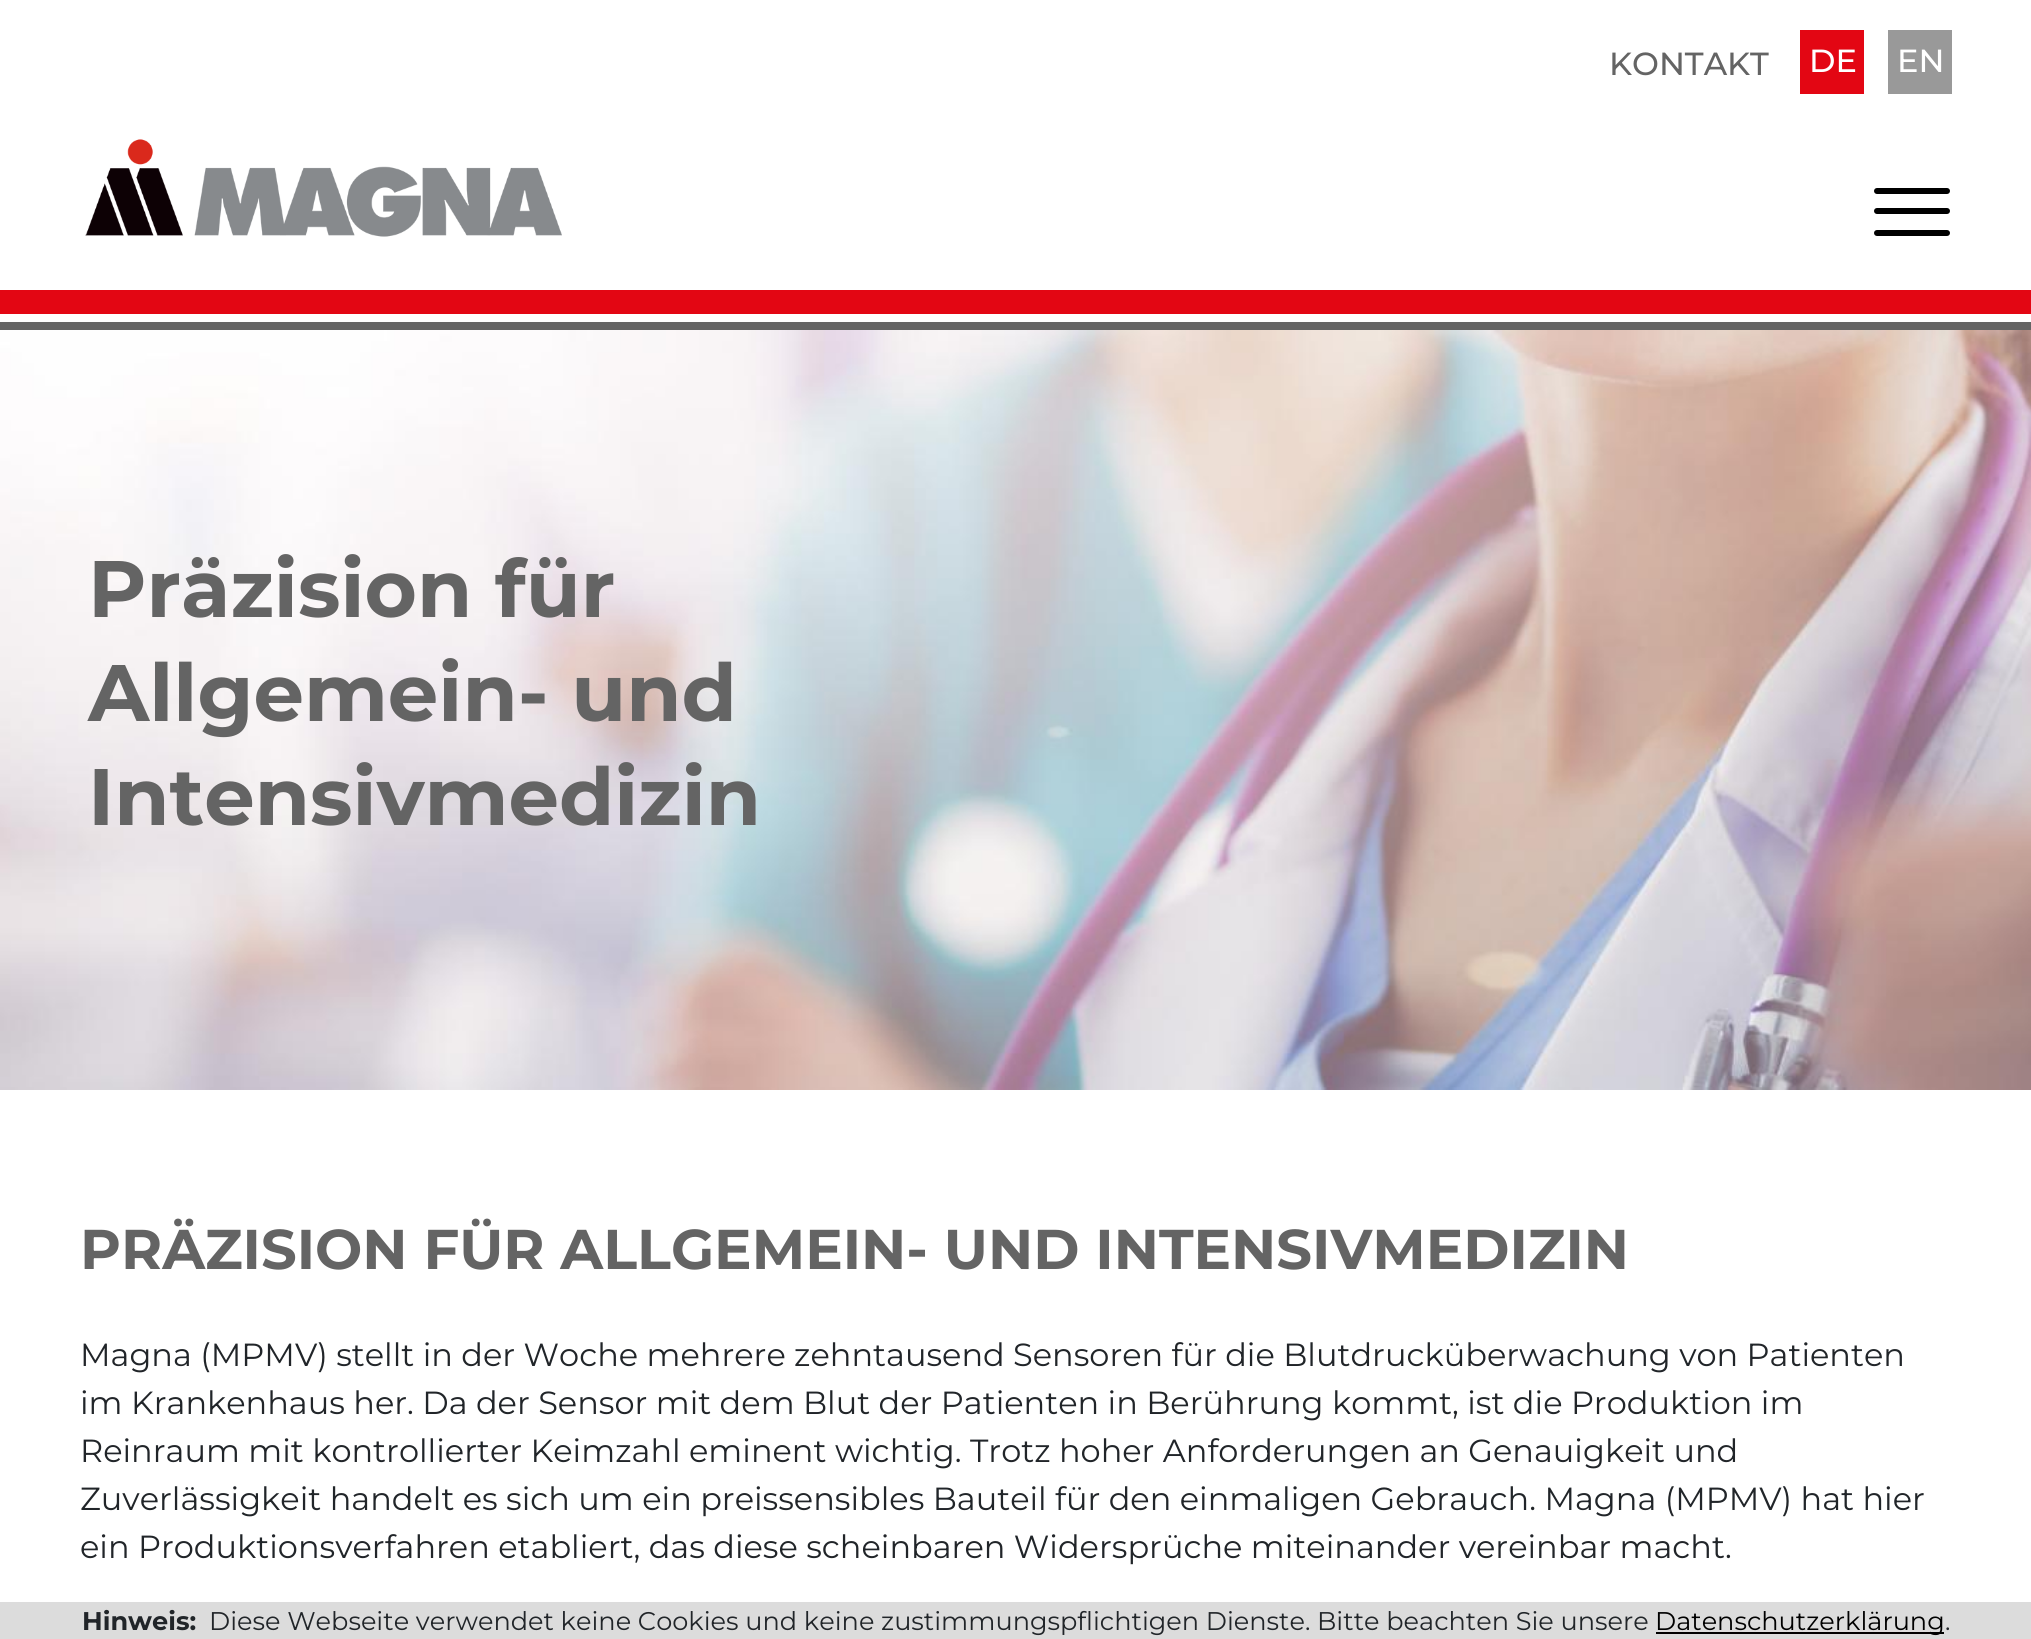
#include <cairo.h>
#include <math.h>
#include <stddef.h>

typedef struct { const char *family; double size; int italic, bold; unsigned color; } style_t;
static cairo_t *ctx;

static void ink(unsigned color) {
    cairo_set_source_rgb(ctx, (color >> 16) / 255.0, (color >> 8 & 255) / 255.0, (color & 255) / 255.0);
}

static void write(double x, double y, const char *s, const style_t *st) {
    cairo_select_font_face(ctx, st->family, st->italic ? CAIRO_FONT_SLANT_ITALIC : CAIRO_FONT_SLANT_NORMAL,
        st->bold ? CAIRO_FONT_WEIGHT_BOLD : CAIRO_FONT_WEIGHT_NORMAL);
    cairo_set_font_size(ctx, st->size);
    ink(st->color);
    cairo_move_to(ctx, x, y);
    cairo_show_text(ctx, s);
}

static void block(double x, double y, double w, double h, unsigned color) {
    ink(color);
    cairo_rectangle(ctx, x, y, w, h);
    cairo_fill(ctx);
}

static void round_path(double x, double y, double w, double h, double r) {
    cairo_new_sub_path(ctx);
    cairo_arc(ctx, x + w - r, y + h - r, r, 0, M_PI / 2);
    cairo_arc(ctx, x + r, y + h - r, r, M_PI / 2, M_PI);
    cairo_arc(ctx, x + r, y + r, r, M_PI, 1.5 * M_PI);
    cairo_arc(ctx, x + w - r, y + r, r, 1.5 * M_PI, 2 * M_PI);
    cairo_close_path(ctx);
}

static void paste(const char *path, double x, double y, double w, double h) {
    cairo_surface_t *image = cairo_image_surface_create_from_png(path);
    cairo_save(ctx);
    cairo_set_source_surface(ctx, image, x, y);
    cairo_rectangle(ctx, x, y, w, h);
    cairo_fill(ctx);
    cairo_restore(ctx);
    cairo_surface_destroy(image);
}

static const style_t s1 = {"Montserrat Thin", 32, 0, 0, 0x646464};
static const style_t s2 = {"Montserrat Thin", 32, 0, 0, 0xffffff};
static const style_t s3 = {"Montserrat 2 Thin", 80, 0, 0, 0x646464};
static const style_t s4 = {"Montserrat 2 Thin", 56, 0, 0, 0x646464};
static const style_t s5 = {"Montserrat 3 Thin", 32, 0, 0, 0x212529};
static const style_t s6 = {"Montserrat 2 Thin", 25.6, 0, 0, 0x212529};
static const style_t s7 = {"Montserrat 3 Thin", 25.6, 0, 0, 0x212529};
static const style_t s8 = {"Montserrat 3 Thin", 25.6, 0, 0, 0x000000};

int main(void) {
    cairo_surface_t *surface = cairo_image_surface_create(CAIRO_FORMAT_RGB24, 2031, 1639);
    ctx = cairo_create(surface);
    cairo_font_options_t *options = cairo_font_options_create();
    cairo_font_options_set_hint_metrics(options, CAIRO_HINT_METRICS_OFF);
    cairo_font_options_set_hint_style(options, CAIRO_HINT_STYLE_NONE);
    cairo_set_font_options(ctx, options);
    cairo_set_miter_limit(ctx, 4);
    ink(0xffffff);
    cairo_paint(ctx);
    block(0, 322, 2031, 8, 0x646464);
    write(1609, 75, "KONTAKT", &s1);
    block(1800, 30, 64, 64, 0xe30613);
    write(1809, 72, "DE", &s2);
    block(1888, 30, 64, 64, 0x999999);
    write(1897, 72, "EN", &s2);
    paste("pic1.png", 85, 139, 477, 98);
    ink(0x000000);
    round_path(1874, 188, 76, 6, 3);
    cairo_fill(ctx);
    round_path(1874, 208, 76, 6, 3);
    cairo_fill(ctx);
    round_path(1874, 230, 76, 6, 3);
    cairo_fill(ctx);
    block(0, 290, 2031, 24, 0xe30613);
    paste("pic2.png", 0, 330, 2031, 760);
    write(88, 617, "Präzision für", &s3);
    write(88, 721, "Allgemein- und", &s3);
    write(88, 825, "Intensivmedizin", &s3);
    write(80, 1269, "PRÄZISION FÜR ALLGEMEIN- UND INTENSIVMEDIZIN", &s4);
    write(80, 1366, "Magna (MPMV) stellt in der Woche mehrere zehntausend Sensoren für die Blutdrucküberwachung von Patienten", &s5);
    write(80, 1414, "im Krankenhaus her. Da der Sensor mit dem Blut der Patienten in Berührung kommt, ist die Produktion im", &s5);
    write(80, 1462, "Reinraum mit kontrollierter Keimzahl eminent wichtig. Trotz hoher Anforderungen an Genauigkeit und", &s5);
    write(80, 1510, "Zuverlässigkeit handelt es sich um ein preissensibles Bauteil für den einmaligen Gebrauch. Magna (MPMV) hat hier", &s5);
    write(80, 1558, "ein Produktionsverfahren etabliert, das diese scheinbaren Widersprüche miteinander vereinbar macht.", &s5);
    block(0, 1602, 2031, 37, 0xdcdcdc);
    write(82, 1630, "Hinweis:", &s6);
    write(209, 1630, "Diese Webseite verwendet keine Cookies und keine zustimmungspflichtigen Dienste. Bitte beachten Sie unsere", &s7);
    block(1656, 1632, 288, 2, 0x000000);
    write(1655, 1630, "Datenschutzerklärung", &s8);
    write(1945, 1630, ".", &s7);
    cairo_surface_write_to_png(surface, "screenshot.png");
    cairo_font_options_destroy(options);
    cairo_destroy(ctx);
    cairo_surface_destroy(surface);
    return 0;
}
